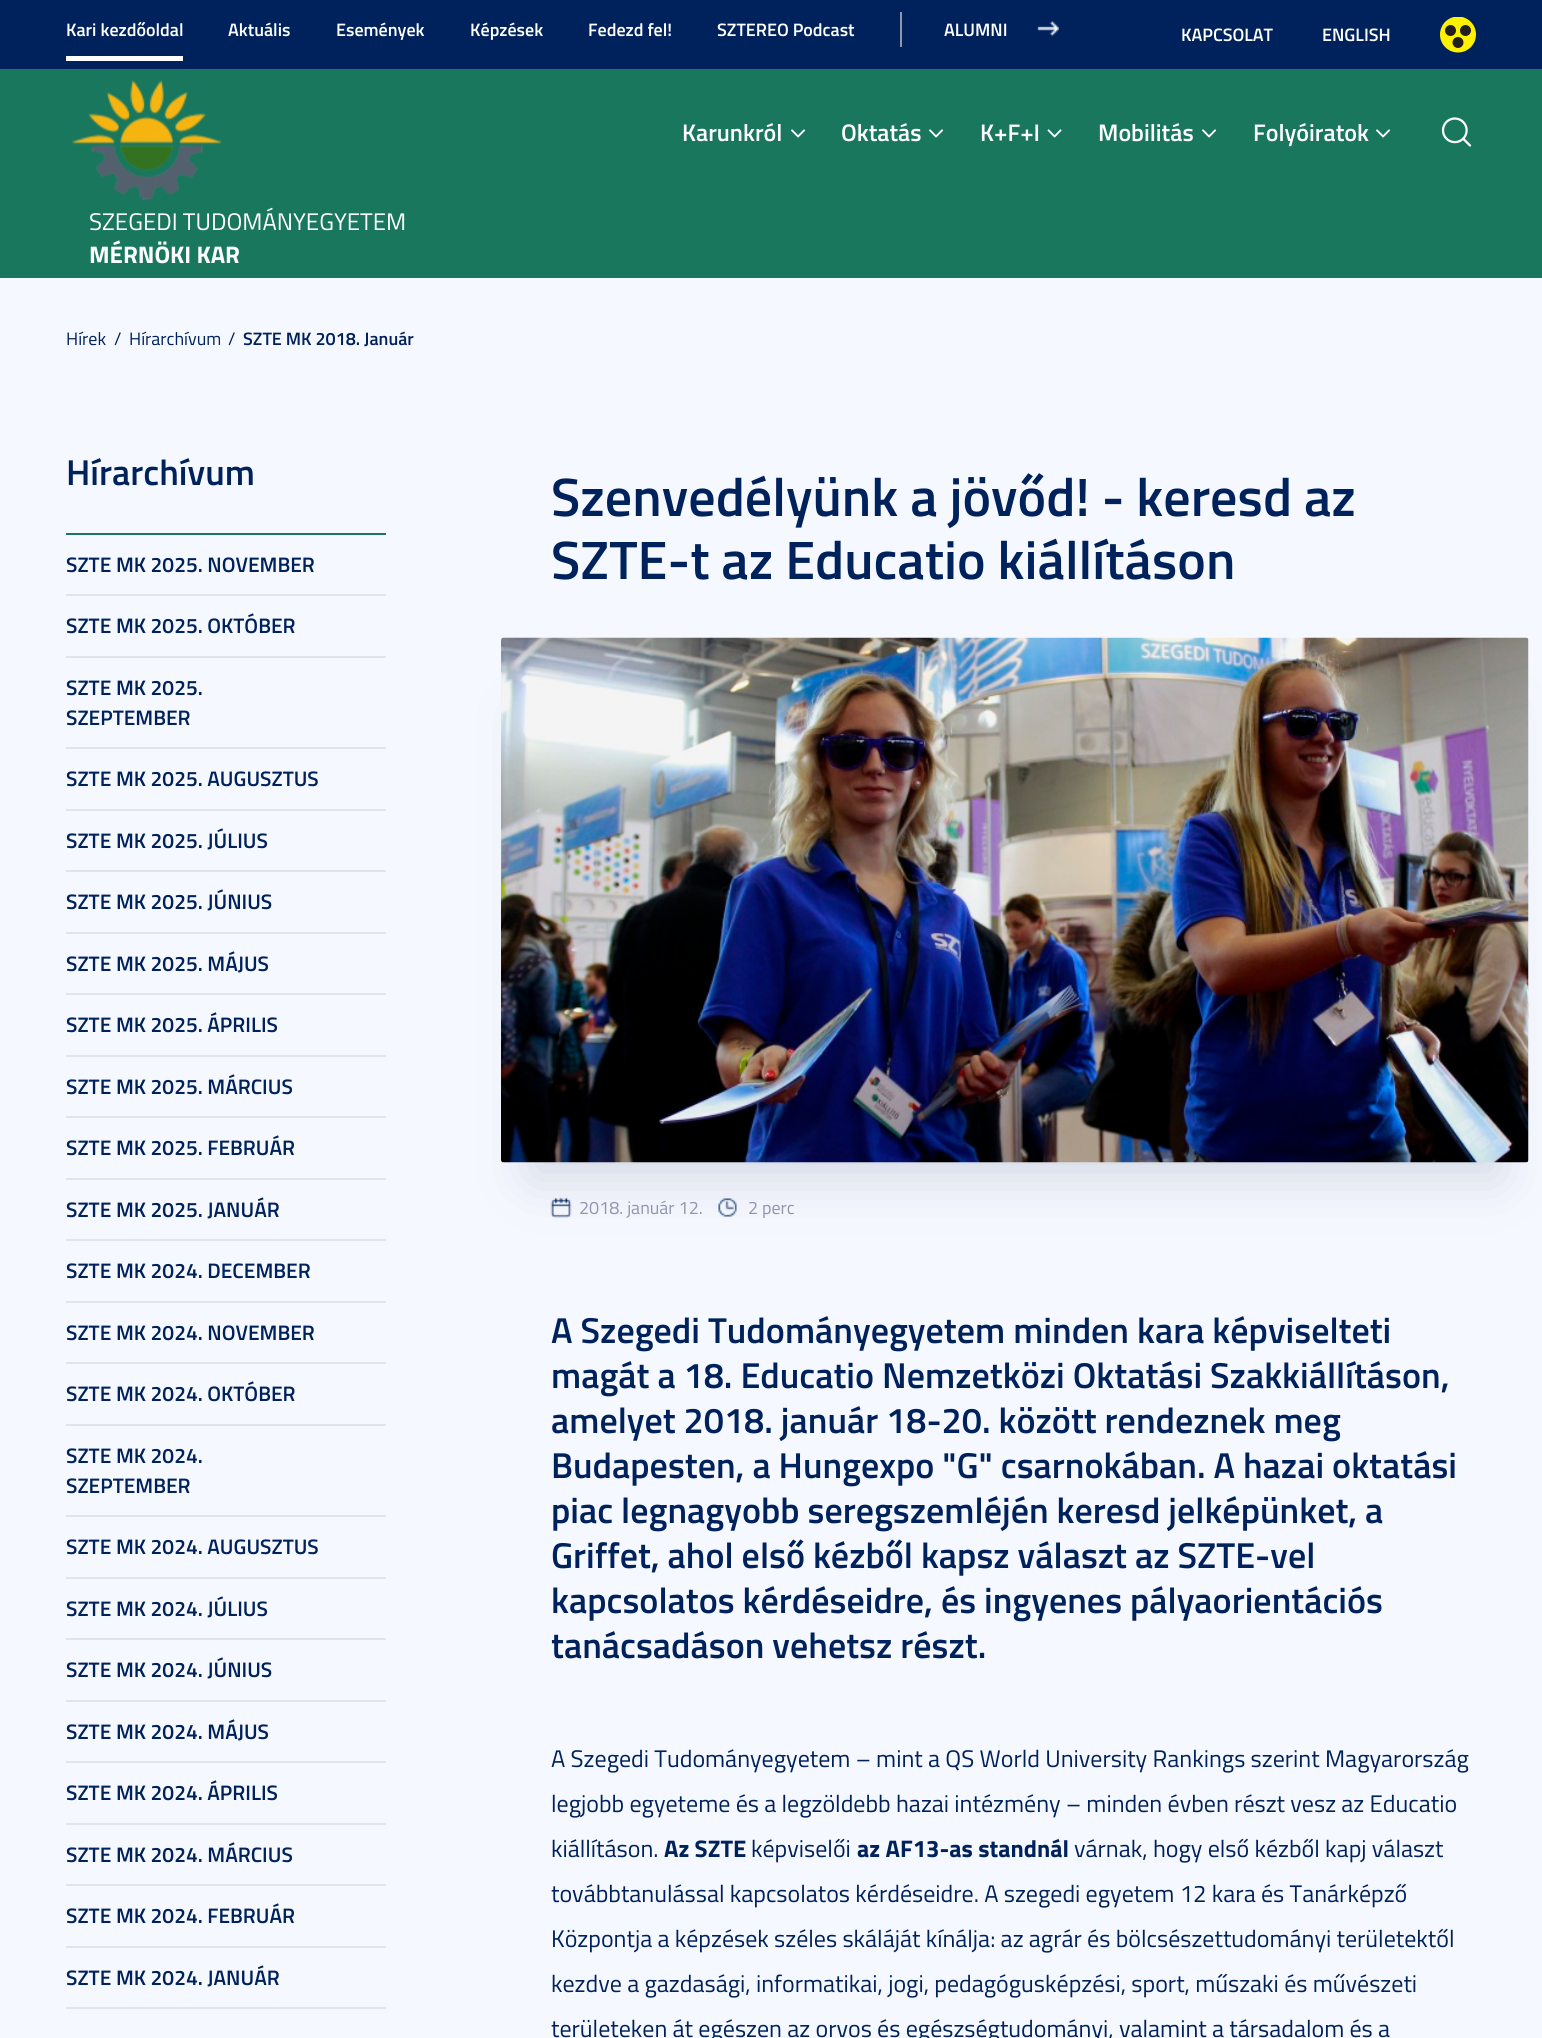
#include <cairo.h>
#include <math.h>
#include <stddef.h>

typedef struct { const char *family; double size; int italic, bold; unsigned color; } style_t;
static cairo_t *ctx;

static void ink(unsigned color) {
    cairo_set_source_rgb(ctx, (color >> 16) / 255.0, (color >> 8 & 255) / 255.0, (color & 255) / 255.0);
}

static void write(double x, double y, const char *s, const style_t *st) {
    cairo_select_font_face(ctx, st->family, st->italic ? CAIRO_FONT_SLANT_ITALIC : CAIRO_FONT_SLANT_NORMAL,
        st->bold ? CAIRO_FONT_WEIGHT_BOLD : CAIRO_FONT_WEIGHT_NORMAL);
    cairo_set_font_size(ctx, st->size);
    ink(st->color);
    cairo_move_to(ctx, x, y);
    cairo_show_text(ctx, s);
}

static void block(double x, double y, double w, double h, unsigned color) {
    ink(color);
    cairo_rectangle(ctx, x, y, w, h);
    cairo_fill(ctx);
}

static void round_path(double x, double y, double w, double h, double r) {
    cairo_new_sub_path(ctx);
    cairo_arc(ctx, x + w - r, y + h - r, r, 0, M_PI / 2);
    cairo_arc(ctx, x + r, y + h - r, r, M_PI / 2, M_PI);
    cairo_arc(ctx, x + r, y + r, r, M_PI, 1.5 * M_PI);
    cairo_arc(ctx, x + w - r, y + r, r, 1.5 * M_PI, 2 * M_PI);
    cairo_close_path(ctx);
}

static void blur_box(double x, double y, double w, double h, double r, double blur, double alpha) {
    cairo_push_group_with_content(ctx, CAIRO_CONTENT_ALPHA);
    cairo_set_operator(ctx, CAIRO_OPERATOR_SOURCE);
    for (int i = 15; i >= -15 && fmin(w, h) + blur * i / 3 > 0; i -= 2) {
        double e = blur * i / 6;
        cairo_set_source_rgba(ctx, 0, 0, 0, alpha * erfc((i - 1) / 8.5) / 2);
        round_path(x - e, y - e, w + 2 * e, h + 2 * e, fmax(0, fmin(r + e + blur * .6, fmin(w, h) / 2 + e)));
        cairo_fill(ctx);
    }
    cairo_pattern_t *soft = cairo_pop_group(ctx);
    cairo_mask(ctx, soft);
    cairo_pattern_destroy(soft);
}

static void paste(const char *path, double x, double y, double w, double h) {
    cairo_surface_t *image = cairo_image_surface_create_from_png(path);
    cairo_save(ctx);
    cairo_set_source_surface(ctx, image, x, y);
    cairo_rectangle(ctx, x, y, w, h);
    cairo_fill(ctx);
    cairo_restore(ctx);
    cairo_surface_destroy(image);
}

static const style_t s1 = {"Titillium Web SemiBold", 18, 0, 0, 0xffffff};
static const style_t s2 = {"Titillium Web SemiBold", 24, 0, 0, 0xffffff};
static const style_t s3 = {"Titillium Web", 24, 0, 0, 0xffffff};
static const style_t s4 = {"Titillium Web", 24, 0, 1, 0xffffff};
static const style_t s5 = {"Titillium Web", 18, 0, 0, 0x00225c};
static const style_t s6 = {"Titillium Web SemiBold", 18, 0, 0, 0x00225c};
static const style_t s7 = {"Titillium Web SemiBold", 36, 0, 0, 0x00225c};
static const style_t s8 = {"Titillium Web SemiBold", 21, 0, 0, 0x00225c};
static const style_t s9 = {"Titillium Web SemiBold", 54, 0, 0, 0x00225c};
static const style_t s10 = {"Titillium Web", 18, 0, 0, 0x8f96ad};
static const style_t s11 = {"Titillium Web", 24, 0, 0, 0x00225c};
static const style_t s12 = {"Titillium Web", 24, 0, 1, 0x00225c};

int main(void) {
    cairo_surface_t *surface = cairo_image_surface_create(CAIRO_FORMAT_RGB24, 1542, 2038);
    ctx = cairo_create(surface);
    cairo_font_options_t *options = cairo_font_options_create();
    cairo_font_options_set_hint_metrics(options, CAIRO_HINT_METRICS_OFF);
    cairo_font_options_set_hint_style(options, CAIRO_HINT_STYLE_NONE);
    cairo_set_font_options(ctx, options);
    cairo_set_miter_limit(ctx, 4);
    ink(0xf6f8ff);
    cairo_paint(ctx);
    block(0, 0, 1542, 69, 0x00225c);
    block(66, 56, 117, 5, 0xffffff);
    write(66, 36, "Kari kezdőoldal", &s1);
    write(228, 36, "Aktuális", &s1);
    write(336, 36, "Események", &s1);
    write(470, 36, "Képzések", &s1);
    write(588, 36, "Fedezd fel!", &s1);
    write(717, 36, "SZTEREO Podcast", &s1);
    block(900, 12, 2, 35, 0x8f96ad);
    write(944, 36, "ALUMNI", &s1);
    paste("pic1.png", 1037, 21, 22, 15);
    write(1181, 41, "KAPCSOLAT", &s1);
    write(1322, 41, "ENGLISH", &s1);
    cairo_save(ctx);
    cairo_rectangle(ctx, 1440, 17, 36, 36);
    cairo_clip(ctx);
    ink(0xfff200);
    cairo_arc(ctx, 1458, 34.5, 18, 0, 2 * M_PI);
    cairo_fill(ctx);
    cairo_restore(ctx);
    ink(0x231f20);
    cairo_arc(ctx, 1450.5, 30.5, 5.5, 0, 2 * M_PI);
    cairo_fill(ctx);
    cairo_arc(ctx, 1465.5, 30.5, 5.5, 0, 2 * M_PI);
    cairo_fill(ctx);
    cairo_arc(ctx, 1458, 42.5, 5.5, 0, 2 * M_PI);
    cairo_fill(ctx);
    block(0, 69, 1542, 209, 0x18775c);
    write(682, 141, "Karunkról", &s2);
    paste("pic2.png", 791, 129, 15, 9);
    write(841, 141, "Oktatás", &s2);
    paste("pic2.png", 929, 129, 15, 9);
    write(980, 141, "K+F+I", &s2);
    paste("pic3.png", 1047, 129, 15, 9);
    write(1098, 141, "Mobilitás", &s2);
    paste("pic2.png", 1202, 129, 15, 9);
    write(1253, 141, "Folyóiratok", &s2);
    paste("pic2.png", 1376, 129, 15, 9);
    paste("pic4.png", 1441, 117, 31, 30);
    paste("pic5.png", 72, 80, 150, 121);
    write(89, 230, "SZEGEDI TUDOMÁNYEGYETEM", &s3);
    write(89, 263, "MÉRNÖKI KAR", &s4);
    write(66, 345, "Hírek", &s5);
    write(114, 345, "/", &s5);
    write(129, 345, "Hírarchívum", &s5);
    write(228, 345, "/", &s5);
    write(243, 345, "SZTE MK 2018. Január", &s6);
    write(66, 485, "Hírarchívum", &s7);
    block(66, 533, 320, 2, 0x18775c);
    write(66, 572, "SZTE MK 2025. NOVEMBER", &s8);
    block(66, 594, 320, 2, 0xe1e4ef);
    write(66, 633, "SZTE MK 2025. OKTÓBER", &s8);
    block(66, 656, 320, 2, 0xe1e4ef);
    write(66, 695, "SZTE MK 2025.", &s8);
    write(66, 725, "SZEPTEMBER", &s8);
    block(66, 747, 320, 2, 0xe1e4ef);
    write(66, 786, "SZTE MK 2025. AUGUSZTUS", &s8);
    block(66, 809, 320, 2, 0xe1e4ef);
    write(66, 848, "SZTE MK 2025. JÚLIUS", &s8);
    block(66, 870, 320, 2, 0xe1e4ef);
    write(66, 909, "SZTE MK 2025. JÚNIUS", &s8);
    block(66, 932, 320, 2, 0xe1e4ef);
    write(66, 971, "SZTE MK 2025. MÁJUS", &s8);
    block(66, 993, 320, 2, 0xe1e4ef);
    write(66, 1032, "SZTE MK 2025. ÁPRILIS", &s8);
    block(66, 1055, 320, 2, 0xe1e4ef);
    write(66, 1094, "SZTE MK 2025. MÁRCIUS", &s8);
    block(66, 1116, 320, 2, 0xe1e4ef);
    write(66, 1155, "SZTE MK 2025. FEBRUÁR", &s8);
    block(66, 1178, 320, 2, 0xe1e4ef);
    write(66, 1217, "SZTE MK 2025. JANUÁR", &s8);
    block(66, 1239, 320, 2, 0xe1e4ef);
    write(66, 1278, "SZTE MK 2024. DECEMBER", &s8);
    block(66, 1301, 320, 2, 0xe1e4ef);
    write(66, 1340, "SZTE MK 2024. NOVEMBER", &s8);
    block(66, 1362, 320, 2, 0xe1e4ef);
    write(66, 1401, "SZTE MK 2024. OKTÓBER", &s8);
    block(66, 1424, 320, 2, 0xe1e4ef);
    write(66, 1463, "SZTE MK 2024.", &s8);
    write(66, 1493, "SZEPTEMBER", &s8);
    block(66, 1515, 320, 2, 0xe1e4ef);
    write(66, 1554, "SZTE MK 2024. AUGUSZTUS", &s8);
    block(66, 1577, 320, 2, 0xe1e4ef);
    write(66, 1616, "SZTE MK 2024. JÚLIUS", &s8);
    block(66, 1638, 320, 2, 0xe1e4ef);
    write(66, 1677, "SZTE MK 2024. JÚNIUS", &s8);
    block(66, 1700, 320, 2, 0xe1e4ef);
    write(66, 1739, "SZTE MK 2024. MÁJUS", &s8);
    block(66, 1761, 320, 2, 0xe1e4ef);
    write(66, 1800, "SZTE MK 2024. ÁPRILIS", &s8);
    block(66, 1823, 320, 2, 0xe1e4ef);
    write(66, 1862, "SZTE MK 2024. MÁRCIUS", &s8);
    block(66, 1884, 320, 2, 0xe1e4ef);
    write(66, 1923, "SZTE MK 2024. FEBRUÁR", &s8);
    block(66, 1946, 320, 2, 0xe1e4ef);
    write(66, 1985, "SZTE MK 2024. JANUÁR", &s8);
    block(66, 2007, 320, 2, 0xe1e4ef);
    write(551, 516, "Szenvedélyünk a jövőd! - keresd az", &s9);
    write(551, 579, "SZTE-t az Educatio kiállításon", &s9);
    ink(0x435777);
    blur_box(531, 713, 968, 465, 0, 26, 0.2);
    paste("pic6.png", 501, 637, 1028, 526);
    paste("pic7.png", 550, 1197, 22, 21);
    write(579, 1214, "2018. január 12.", &s10);
    paste("pic8.png", 718, 1198, 19, 19);
    write(748, 1214, "2 perc", &s10);
    write(551, 1343, "A Szegedi Tudományegyetem minden kara képviselteti", &s7);
    write(551, 1388, "magát a 18. Educatio Nemzetközi Oktatási Szakkiállításon,", &s7);
    write(551, 1433, "amelyet 2018. január 18-20. között rendeznek meg", &s7);
    write(551, 1478, "Budapesten, a Hungexpo \"G\" csarnokában. A hazai oktatási", &s7);
    write(551, 1523, "piac legnagyobb seregszemléjén keresd jelképünket, a", &s7);
    write(551, 1568, "Griffet, ahol első kézből kapsz választ az SZTE-vel", &s7);
    write(551, 1613, "kapcsolatos kérdéseidre, és ingyenes pályaorientációs", &s7);
    write(551, 1658, "tanácsadáson vehetsz részt.", &s7);
    write(551, 1767, "A Szegedi Tudományegyetem – mint a QS World University Rankings szerint Magyarország", &s11);
    write(551, 1812, "legjobb egyeteme és a legzöldebb hazai intézmény – minden évben részt vesz az Educatio", &s11);
    write(551, 1857, "kiállításon.", &s11);
    write(664, 1857, "Az SZTE", &s12);
    write(751, 1857, "képviselői", &s11);
    write(857, 1857, "az AF13-as standnál", &s12);
    write(1074, 1857, "várnak, hogy első kézből kapj választ", &s11);
    write(551, 1902, "továbbtanulással kapcsolatos kérdéseidre. A szegedi egyetem 12 kara és Tanárképző", &s11);
    write(551, 1947, "Központja a képzések széles skáláját kínálja: az agrár és bölcsészettudományi területektől", &s11);
    write(551, 1992, "kezdve a gazdasági, informatikai, jogi, pedagógusképzési, sport, műszaki és művészeti", &s11);
    write(551, 2037, "területeken át egészen az orvos és egészségtudományi, valamint a társadalom és a", &s11);
    cairo_surface_write_to_png(surface, "screenshot.png");
    cairo_font_options_destroy(options);
    cairo_destroy(ctx);
    cairo_surface_destroy(surface);
    return 0;
}
